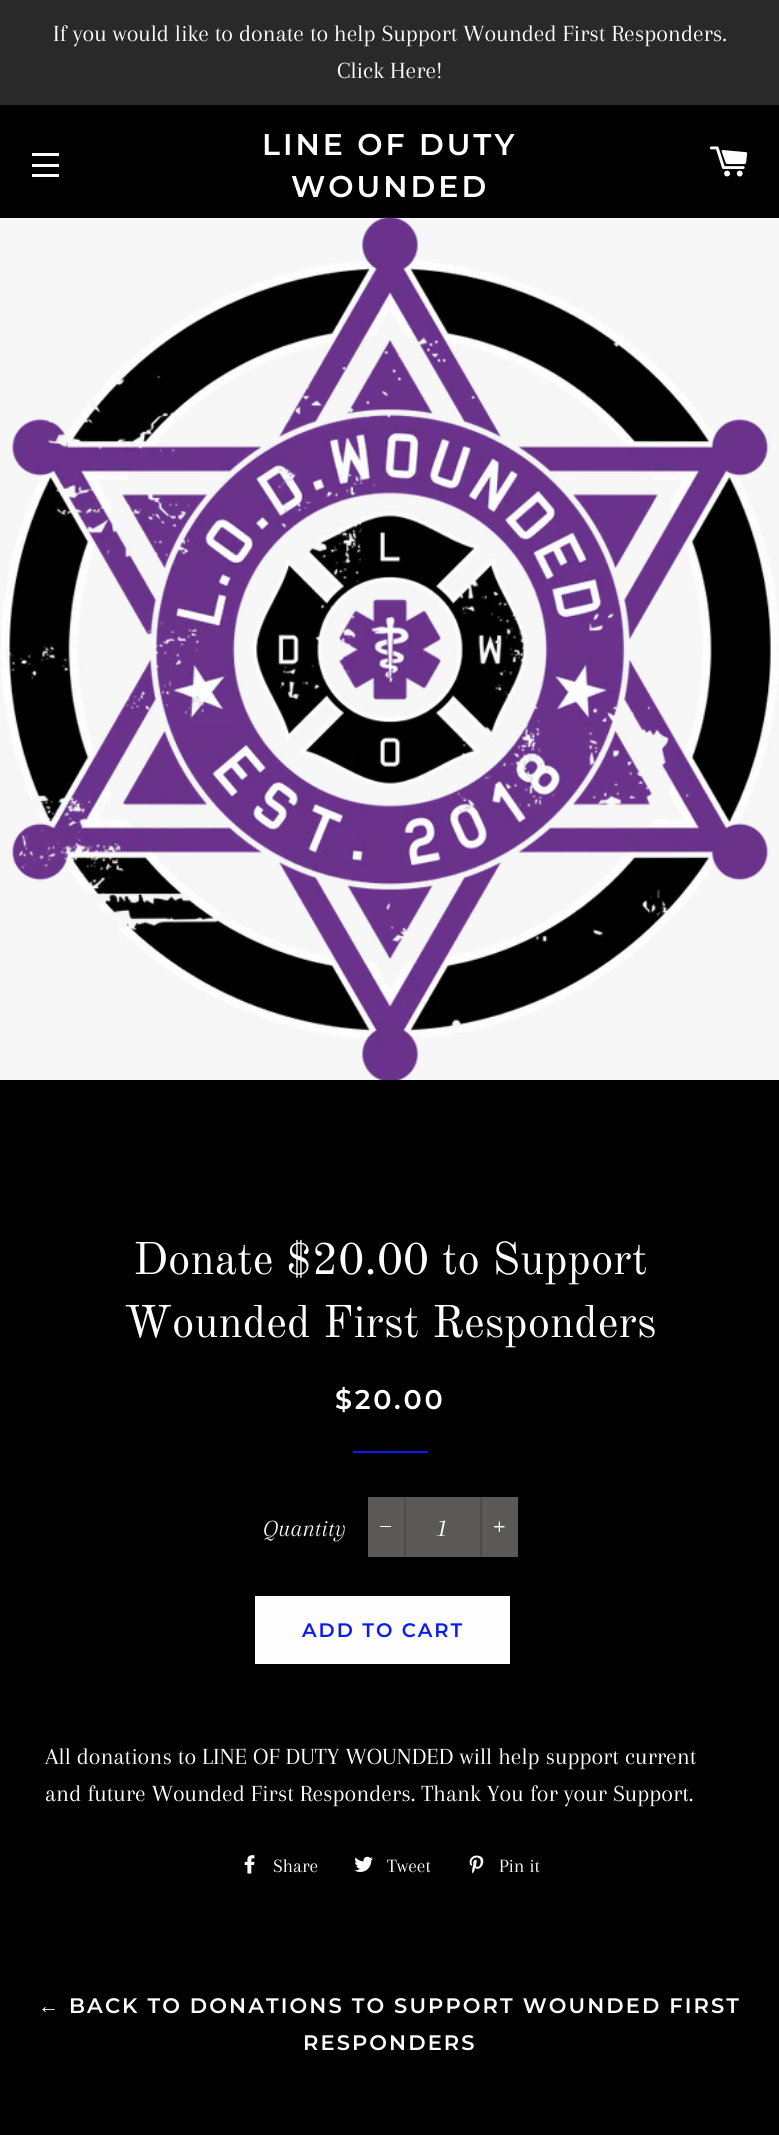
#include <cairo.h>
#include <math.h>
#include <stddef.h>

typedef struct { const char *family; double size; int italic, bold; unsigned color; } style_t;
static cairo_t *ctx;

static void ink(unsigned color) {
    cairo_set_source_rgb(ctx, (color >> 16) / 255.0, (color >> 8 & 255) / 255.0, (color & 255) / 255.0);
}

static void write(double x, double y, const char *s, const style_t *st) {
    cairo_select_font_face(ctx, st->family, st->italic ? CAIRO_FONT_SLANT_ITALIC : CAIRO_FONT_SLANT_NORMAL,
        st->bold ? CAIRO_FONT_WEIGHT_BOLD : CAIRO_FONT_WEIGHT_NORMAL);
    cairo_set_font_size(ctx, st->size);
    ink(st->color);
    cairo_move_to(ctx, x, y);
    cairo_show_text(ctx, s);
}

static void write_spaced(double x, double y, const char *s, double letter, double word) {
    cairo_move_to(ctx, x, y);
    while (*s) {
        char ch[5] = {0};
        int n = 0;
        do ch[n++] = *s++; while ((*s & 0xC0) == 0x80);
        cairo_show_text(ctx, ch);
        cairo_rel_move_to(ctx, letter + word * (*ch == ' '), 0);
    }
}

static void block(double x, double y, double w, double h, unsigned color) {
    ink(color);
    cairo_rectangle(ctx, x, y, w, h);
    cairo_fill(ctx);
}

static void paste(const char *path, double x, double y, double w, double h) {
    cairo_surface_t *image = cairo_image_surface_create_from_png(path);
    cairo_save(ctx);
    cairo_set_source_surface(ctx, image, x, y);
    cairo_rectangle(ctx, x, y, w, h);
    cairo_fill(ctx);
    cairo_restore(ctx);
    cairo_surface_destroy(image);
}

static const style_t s1 = {"Arapey", 24, 0, 0, 0xfdfdfd};
static const style_t s2 = {"Old Standard TT", 45, 0, 0, 0xfdfdfd};
static const style_t s3 = {"Arapey", 24, 1, 0, 0xfdfdfd};
static const style_t s4 = {"Arapey", 27, 1, 0, 0xfdfdfd};
static const style_t s5 = {"Arapey", 19.5, 0, 0, 0xfdfdfd};

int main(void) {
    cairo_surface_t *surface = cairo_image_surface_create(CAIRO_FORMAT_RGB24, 779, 2135);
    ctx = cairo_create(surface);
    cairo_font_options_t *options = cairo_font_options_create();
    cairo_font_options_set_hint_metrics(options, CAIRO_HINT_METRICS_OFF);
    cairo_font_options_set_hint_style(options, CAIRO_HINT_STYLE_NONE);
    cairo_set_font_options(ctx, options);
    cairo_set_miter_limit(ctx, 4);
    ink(0x000000);
    cairo_paint(ctx);
    block(0, 0, 779, 105, 0x292929);
    write(53, 41, "If you would like to donate to help Support Wounded First Responders.", &s1);
    write(337, 78, "Click Here!", &s1);
    block(32, 153, 27, 3, 0xfdfdfd);
    block(32, 164, 27, 3, 0xfdfdfd);
    block(32, 174, 27, 3, 0xfdfdfd);
    cairo_select_font_face(ctx, "Montserrat SemiBold", CAIRO_FONT_SLANT_NORMAL, CAIRO_FONT_WEIGHT_NORMAL);
    cairo_set_font_size(ctx, 30);
    write_spaced(262, 155, "LINE OF DUTY", 3, 0);
    write_spaced(291, 197, "WOUNDED", 3, 0);
    paste("pic1.png", 709, 146, 39, 31);
    block(0, 218, 779, 862, 0xf7f7f7);
    paste("pic2.png", 1, 217, 778, 863);
    write(133, 1274, "Donate $20.00 to Support", &s2);
    write(124, 1337, "Wounded First Responders", &s2);
    cairo_select_font_face(ctx, "Montserrat SemiBold", CAIRO_FONT_SLANT_NORMAL, CAIRO_FONT_WEIGHT_NORMAL);
    cairo_set_font_size(ctx, 27);
    write_spaced(335, 1409, "$20.00", 2.75, 0);
    block(353, 1451, 75, 2, 0x0a1af7);
    write(263, 1536, "Quantity", &s3);
    block(368, 1497, 150, 60, 0x5b5858);
    block(404, 1497, 2, 60, 0x4e4b4b);
    block(380, 1526, 11, 1, 0xffffff);
    write(438, 1536, "1", &s4);
    block(480, 1497, 2, 60, 0x4e4b4b);
    paste("pic3.png", 494, 1521, 11, 11);
    block(255, 1596, 255, 68, 0xfdfdfd);
    cairo_select_font_face(ctx, "Montserrat SemiBold", CAIRO_FONT_SLANT_NORMAL, CAIRO_FONT_WEIGHT_NORMAL);
    cairo_set_font_size(ctx, 19.5);
    ink(0x0a1af7);
    write_spaced(302, 1637, "ADD TO CART", 2, 0);
    write(45, 1764, "All donations to LINE OF DUTY WOUNDED will help support current", &s1);
    write(45, 1801, "and future Wounded First Responders. Thank You for your Support.", &s1);
    paste("pic4.png", 244, 1855, 11, 19);
    write(273, 1872, "Share", &s5);
    paste("pic5.png", 354, 1856, 19, 16);
    write(387, 1872, "Tweet", &s5);
    paste("pic6.png", 469, 1855, 15, 19);
    write(499, 1872, "Pin it", &s5);
    cairo_select_font_face(ctx, "Liberation Sans", CAIRO_FONT_SLANT_NORMAL, CAIRO_FONT_WEIGHT_BOLD);
    cairo_set_font_size(ctx, 21);
    write_spaced(38, 2013, "←", 2.1, 0);
    cairo_select_font_face(ctx, "Montserrat SemiBold", CAIRO_FONT_SLANT_NORMAL, CAIRO_FONT_WEIGHT_NORMAL);
    write_spaced(69, 2013, "BACK TO DONATIONS TO SUPPORT WOUNDED FIRST", 2.1, 0);
    write_spaced(303, 2050, "RESPONDERS", 2.1, 0);
    cairo_surface_write_to_png(surface, "screenshot.png");
    cairo_font_options_destroy(options);
    cairo_destroy(ctx);
    cairo_surface_destroy(surface);
    return 0;
}
